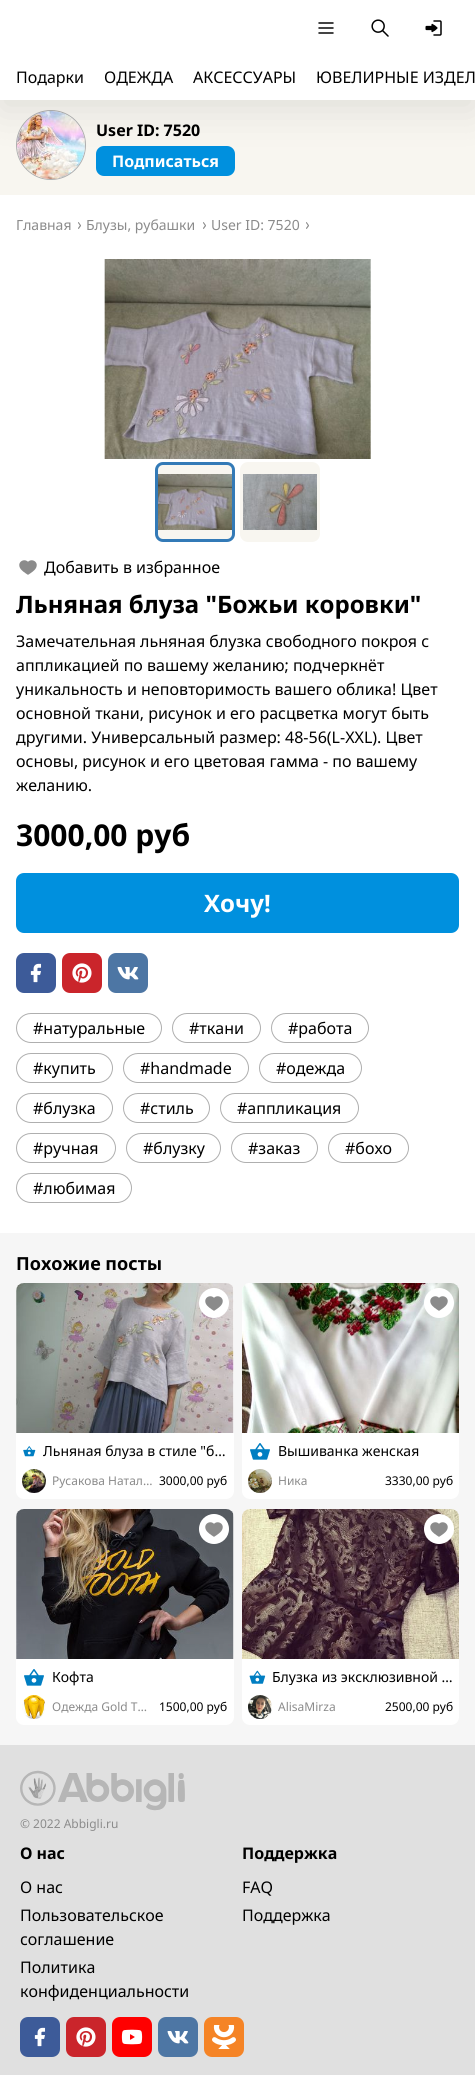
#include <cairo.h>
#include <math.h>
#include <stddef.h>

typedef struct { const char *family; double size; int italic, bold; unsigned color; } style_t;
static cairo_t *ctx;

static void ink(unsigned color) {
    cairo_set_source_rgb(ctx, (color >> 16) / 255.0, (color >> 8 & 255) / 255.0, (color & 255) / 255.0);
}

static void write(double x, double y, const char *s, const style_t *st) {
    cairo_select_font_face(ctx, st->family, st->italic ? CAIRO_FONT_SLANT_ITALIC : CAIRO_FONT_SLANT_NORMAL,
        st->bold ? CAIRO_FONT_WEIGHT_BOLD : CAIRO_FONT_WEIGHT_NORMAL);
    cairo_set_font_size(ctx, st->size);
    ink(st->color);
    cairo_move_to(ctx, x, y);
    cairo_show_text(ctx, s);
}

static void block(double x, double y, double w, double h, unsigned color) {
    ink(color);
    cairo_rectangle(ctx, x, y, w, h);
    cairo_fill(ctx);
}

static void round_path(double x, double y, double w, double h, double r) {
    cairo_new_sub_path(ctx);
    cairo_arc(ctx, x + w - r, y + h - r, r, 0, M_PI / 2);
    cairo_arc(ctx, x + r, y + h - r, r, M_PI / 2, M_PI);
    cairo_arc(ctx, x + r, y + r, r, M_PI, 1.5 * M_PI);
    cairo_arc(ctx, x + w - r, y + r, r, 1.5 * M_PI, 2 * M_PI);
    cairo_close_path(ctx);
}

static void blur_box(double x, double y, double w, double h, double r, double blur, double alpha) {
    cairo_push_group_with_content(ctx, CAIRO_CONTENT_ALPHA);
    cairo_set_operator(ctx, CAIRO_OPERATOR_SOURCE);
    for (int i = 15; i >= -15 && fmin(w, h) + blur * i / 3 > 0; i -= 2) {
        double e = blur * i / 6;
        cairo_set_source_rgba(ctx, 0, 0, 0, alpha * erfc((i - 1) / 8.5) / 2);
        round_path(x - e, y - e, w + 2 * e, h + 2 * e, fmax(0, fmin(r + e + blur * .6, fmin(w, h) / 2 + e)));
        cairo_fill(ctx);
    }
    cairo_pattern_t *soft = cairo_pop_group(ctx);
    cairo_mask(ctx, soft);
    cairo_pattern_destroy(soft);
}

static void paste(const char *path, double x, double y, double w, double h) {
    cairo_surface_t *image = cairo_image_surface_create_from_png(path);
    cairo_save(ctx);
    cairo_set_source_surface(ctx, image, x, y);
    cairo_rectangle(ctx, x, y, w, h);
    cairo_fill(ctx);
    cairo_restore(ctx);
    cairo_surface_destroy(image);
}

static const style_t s1 = {"Noto Sans", 16, 0, 0, 0x000000};
static const style_t s2 = {"Noto Sans", 16, 0, 1, 0x000000};
static const style_t s3 = {"Noto Sans", 16, 0, 1, 0xffffff};
static const style_t s4 = {"Noto Sans", 14, 0, 0, 0x8b8b8b};
static const style_t s5 = {"Noto Sans", 24, 0, 1, 0x000000};
static const style_t s6 = {"Noto Sans", 30, 0, 1, 0x000000};
static const style_t s7 = {"Noto Sans", 24, 0, 1, 0xffffff};
static const style_t s8 = {"Noto Sans", 18, 0, 1, 0x000000};
static const style_t s9 = {"Noto Sans", 14, 0, 0, 0x000000};
static const style_t s10 = {"Noto Sans", 12, 0, 0, 0x8b8b8b};
static const style_t s11 = {"Noto Sans", 12, 0, 0, 0x000000};

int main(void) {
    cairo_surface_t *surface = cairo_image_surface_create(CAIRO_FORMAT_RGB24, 475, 2075);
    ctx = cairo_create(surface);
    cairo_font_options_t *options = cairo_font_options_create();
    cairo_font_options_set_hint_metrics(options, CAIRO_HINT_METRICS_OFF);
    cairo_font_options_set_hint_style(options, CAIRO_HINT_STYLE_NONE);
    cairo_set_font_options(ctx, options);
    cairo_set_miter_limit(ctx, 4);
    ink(0xf6f6f6);
    cairo_paint(ctx);
    block(0, 100, 475, 95, 0xf8f6f0);
    ink(0xeeeeee);
    cairo_arc(ctx, 51, 145, 34.5, 0, 2 * M_PI);
    cairo_fill_preserve(ctx);
    ink(0xafafaf);
    cairo_set_line_width(ctx, 1);
    cairo_stroke(ctx);
    paste("pic4.png", 17, 111, 68, 68);
    ink(0x0090de);
    round_path(96, 146, 139, 30, 8);
    cairo_fill(ctx);
    ink(0x000000);
    blur_box(0, 10, 475, 100, 0, 20, 0.1);
    block(0, 0, 475, 100, 0xffffff);
    paste("pic1.png", 318, 22, 16, 12);
    paste("pic2.png", 371, 19, 18, 18);
    paste("pic3.png", 425, 20, 17, 16);
    write(16, 83, "Подарки", &s1);
    write(104, 83, "ОДЕЖДА", &s1);
    write(193, 83, "АКСЕССУАРЫ", &s1);
    write(316, 83, "ЮВЕЛИРНЫЕ ИЗДЕЛ", &s1);
    write(96, 136, "User ID: 7520", &s2);
    write(112, 167, "Подписаться", &s3);
    block(0, 195, 475, 1038, 0xffffff);
    write(16, 230, "Главная", &s4);
    paste("pic5.png", 78, 222, 3, 7);
    write(86, 230, "Блузы, рубашки", &s4);
    paste("pic5.png", 203, 222, 3, 7);
    write(211, 230, "User ID: 7520", &s4);
    paste("pic5.png", 306, 222, 3, 7);
    paste("pic6.png", 104, 259, 267, 200);
    ink(0xf8f6f0);
    round_path(156.5, 463.5, 77, 77, 6.5);
    cairo_fill_preserve(ctx);
    ink(0x337ab7);
    cairo_set_line_width(ctx, 3);
    cairo_stroke(ctx);
    paste("pic7.png", 158, 474, 74, 56);
    ink(0xf8f6f0);
    round_path(240, 462, 80, 80, 8);
    cairo_fill(ctx);
    paste("pic8.png", 243, 474, 74, 56);
    paste("pic9.png", 19, 560, 18, 15);
    write(44, 573, "Добавить в избранное", &s1);
    write(16, 613, "Льняная блуза \"Божьи коровки\"", &s5);
    write(16, 647, "Замечательная льняная блузка свободного покроя с", &s1);
    write(16, 671, "аппликацией по вашему желанию; подчеркнёт", &s1);
    write(16, 695, "уникальность и неповторимость вашего облика! Цвет", &s1);
    write(16, 719, "основной ткани, рисунок и его расцветка могут быть", &s1);
    write(16, 743, "другими. Универсальный размер: 48-56(L-XXL). Цвет", &s1);
    write(16, 767, "основы, рисунок и его цветовая гамма - по вашему", &s1);
    write(16, 791, "желанию.", &s1);
    write(16, 846, "3000,00 руб", &s6);
    ink(0x0090de);
    round_path(16, 873, 443, 60, 8);
    cairo_fill(ctx);
    write(204, 912, "Хочу!", &s7);
    ink(0x3d5b99);
    round_path(16, 953, 40, 40, 8);
    cairo_fill(ctx);
    paste("pic10.png", 30, 963, 12, 20);
    ink(0xca252b);
    round_path(62, 953, 40, 40, 8);
    cairo_fill(ctx);
    paste("pic11.png", 72, 963, 20, 20);
    ink(0x4d76a4);
    round_path(108, 953, 40, 40, 8);
    cairo_fill(ctx);
    paste("pic12.png", 117, 967, 22, 13);
    round_path(16.5, 1013.5, 145, 29, 14.5);
    ink(0xafafaf);
    cairo_set_line_width(ctx, 1);
    cairo_stroke(ctx);
    write(33, 1034, "#натуральные", &s1);
    round_path(172.5, 1013.5, 88, 29, 14.5);
    ink(0xafafaf);
    cairo_stroke(ctx);
    write(189, 1034, "#ткани", &s1);
    round_path(271.5, 1013.5, 97, 29, 14.5);
    ink(0xafafaf);
    cairo_stroke(ctx);
    write(288, 1034, "#работа", &s1);
    round_path(16.5, 1053.5, 96, 29, 14.5);
    ink(0xafafaf);
    cairo_stroke(ctx);
    write(33, 1074, "#купить", &s1);
    round_path(123.5, 1053.5, 125, 29, 14.5);
    ink(0xafafaf);
    cairo_stroke(ctx);
    write(140, 1074, "#handmade", &s1);
    round_path(259.5, 1053.5, 102, 29, 14.5);
    ink(0xafafaf);
    cairo_stroke(ctx);
    write(276, 1074, "#одежда", &s1);
    round_path(16.5, 1093.5, 96, 29, 14.5);
    ink(0xafafaf);
    cairo_stroke(ctx);
    write(33, 1114, "#блузка", &s1);
    round_path(123.5, 1093.5, 86, 29, 14.5);
    ink(0xafafaf);
    cairo_stroke(ctx);
    write(140, 1114, "#стиль", &s1);
    round_path(220.5, 1093.5, 138, 29, 14.5);
    ink(0xafafaf);
    cairo_stroke(ctx);
    write(237, 1114, "#аппликация", &s1);
    round_path(16.5, 1133.5, 99, 29, 14.5);
    ink(0xafafaf);
    cairo_stroke(ctx);
    write(33, 1154, "#ручная", &s1);
    round_path(126.5, 1133.5, 94, 29, 14.5);
    ink(0xafafaf);
    cairo_stroke(ctx);
    write(143, 1154, "#блузку", &s1);
    round_path(231.5, 1133.5, 86, 29, 14.5);
    ink(0xafafaf);
    cairo_stroke(ctx);
    write(248, 1154, "#заказ", &s1);
    round_path(328.5, 1133.5, 80, 29, 14.5);
    ink(0xafafaf);
    cairo_stroke(ctx);
    write(345, 1154, "#бохо", &s1);
    round_path(16.5, 1173.5, 115, 29, 14.5);
    ink(0xafafaf);
    cairo_stroke(ctx);
    write(33, 1194, "#любимая", &s1);
    write(16, 1270, "Похожие посты", &s8);
    ink(0xffffff);
    round_path(16, 1283, 218, 216, 8);
    cairo_fill(ctx);
    paste("pic13.png", 16, 1283, 218, 150);
    cairo_arc(ctx, 214, 1303, 15, 0, 2 * M_PI);
    cairo_fill(ctx);
    paste("pic9.png", 205, 1296, 18, 15);
    paste("pic14.png", 23, 1446, 13, 11);
    cairo_save(ctx);
    cairo_rectangle(ctx, 43, 1443, 185, 16);
    cairo_clip(ctx);
    write(43, 1456, "Льняная блуза в стиле \"б…", &s9);
    cairo_restore(ctx);
    paste("pic15.png", 22, 1469, 24, 24);
    write(52, 1485, "Русакова Натал…", &s10);
    write(159, 1485, "3000,00 руб", &s11);
    ink(0xffffff);
    round_path(242, 1283, 217, 216, 8);
    cairo_fill(ctx);
    paste("pic16.png", 242, 1283, 217, 150);
    cairo_arc(ctx, 439, 1303, 15, 0, 2 * M_PI);
    cairo_fill(ctx);
    paste("pic9.png", 430, 1296, 18, 15);
    paste("pic17.png", 250, 1443, 20, 17);
    write(278, 1456, "Вышиванка женская", &s9);
    ink(0xeeeeee);
    cairo_new_path(ctx);
    cairo_arc(ctx, 260, 1481, 12, 0, 2 * M_PI);
    cairo_fill(ctx);
    paste("pic18.png", 248, 1469, 24, 24);
    write(278, 1485, "Ника", &s10);
    write(385, 1485, "3330,00 руб", &s11);
    ink(0xffffff);
    round_path(16, 1509, 218, 216, 8);
    cairo_fill(ctx);
    paste("pic19.png", 16, 1509, 218, 150);
    cairo_arc(ctx, 214, 1529, 15, 0, 2 * M_PI);
    cairo_fill(ctx);
    paste("pic9.png", 205, 1522, 18, 15);
    paste("pic17.png", 24, 1669, 20, 17);
    write(52, 1682, "Кофта", &s9);
    paste("pic20.png", 22, 1695, 24, 24);
    write(52, 1711, "Одежда Gold T…", &s10);
    write(159, 1711, "1500,00 руб", &s11);
    ink(0xffffff);
    round_path(242, 1509, 217, 216, 8);
    cairo_fill(ctx);
    paste("pic21.png", 242, 1509, 217, 150);
    cairo_arc(ctx, 439, 1529, 15, 0, 2 * M_PI);
    cairo_fill(ctx);
    paste("pic9.png", 430, 1522, 18, 15);
    paste("pic22.png", 249, 1670, 17, 14);
    cairo_save(ctx);
    cairo_rectangle(ctx, 272, 1669, 181, 16);
    cairo_clip(ctx);
    write(272, 1682, "Блузка из эксклюзивной …", &s9);
    cairo_restore(ctx);
    ink(0xeeeeee);
    cairo_new_path(ctx);
    cairo_arc(ctx, 260, 1707, 12, 0, 2 * M_PI);
    cairo_fill(ctx);
    paste("pic23.png", 248, 1695, 24, 24);
    write(278, 1711, "AlisaMirza", &s10);
    write(385, 1711, "2500,00 руб", &s11);
    block(0, 1745, 475, 330, 0xe0e0e0);
    paste("pic24.png", 20, 1770, 165, 41);
    write(20, 1828, "© 2022 Abbigli.ru", &s10);
    write(20, 1859, "О нас", &s2);
    write(20, 1893, "О нас", &s1);
    write(20, 1921, "Пользовательское", &s1);
    write(20, 1945, "cоглашение", &s1);
    write(20, 1973, "Политика", &s1);
    write(20, 1997, "конфиденциальности", &s1);
    write(242, 1859, "Поддержка", &s2);
    write(242, 1893, "FAQ", &s1);
    write(242, 1921, "Поддержка", &s1);
    ink(0x3d5b99);
    round_path(20, 2017, 40, 40, 8);
    cairo_fill(ctx);
    paste("pic10.png", 34, 2027, 12, 20);
    ink(0xca252b);
    round_path(66, 2017, 40, 40, 8);
    cairo_fill(ctx);
    paste("pic11.png", 76, 2027, 20, 20);
    ink(0xff0000);
    round_path(112, 2017, 40, 40, 8);
    cairo_fill(ctx);
    paste("pic25.png", 121, 2029, 22, 16);
    ink(0x4d76a4);
    round_path(158, 2017, 40, 40, 8);
    cairo_fill(ctx);
    paste("pic12.png", 167, 2031, 22, 13);
    ink(0xf58426);
    round_path(204, 2017, 40, 40, 8);
    cairo_fill(ctx);
    paste("pic26.png", 212, 2025, 24, 24);
    cairo_surface_write_to_png(surface, "screenshot.png");
    cairo_font_options_destroy(options);
    cairo_destroy(ctx);
    cairo_surface_destroy(surface);
    return 0;
}
